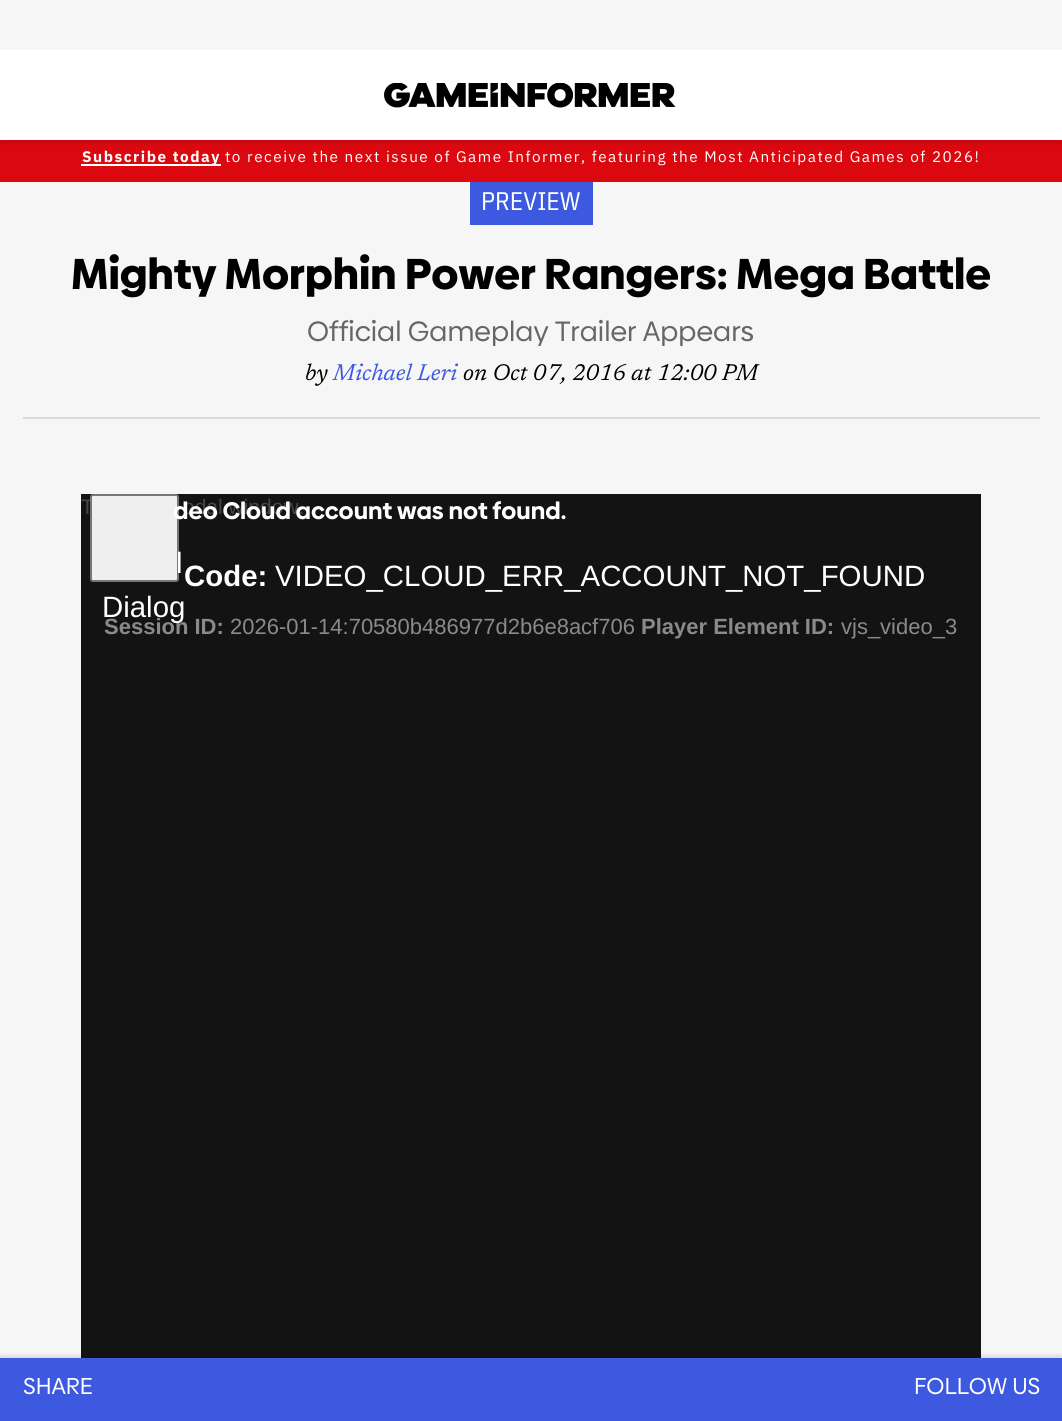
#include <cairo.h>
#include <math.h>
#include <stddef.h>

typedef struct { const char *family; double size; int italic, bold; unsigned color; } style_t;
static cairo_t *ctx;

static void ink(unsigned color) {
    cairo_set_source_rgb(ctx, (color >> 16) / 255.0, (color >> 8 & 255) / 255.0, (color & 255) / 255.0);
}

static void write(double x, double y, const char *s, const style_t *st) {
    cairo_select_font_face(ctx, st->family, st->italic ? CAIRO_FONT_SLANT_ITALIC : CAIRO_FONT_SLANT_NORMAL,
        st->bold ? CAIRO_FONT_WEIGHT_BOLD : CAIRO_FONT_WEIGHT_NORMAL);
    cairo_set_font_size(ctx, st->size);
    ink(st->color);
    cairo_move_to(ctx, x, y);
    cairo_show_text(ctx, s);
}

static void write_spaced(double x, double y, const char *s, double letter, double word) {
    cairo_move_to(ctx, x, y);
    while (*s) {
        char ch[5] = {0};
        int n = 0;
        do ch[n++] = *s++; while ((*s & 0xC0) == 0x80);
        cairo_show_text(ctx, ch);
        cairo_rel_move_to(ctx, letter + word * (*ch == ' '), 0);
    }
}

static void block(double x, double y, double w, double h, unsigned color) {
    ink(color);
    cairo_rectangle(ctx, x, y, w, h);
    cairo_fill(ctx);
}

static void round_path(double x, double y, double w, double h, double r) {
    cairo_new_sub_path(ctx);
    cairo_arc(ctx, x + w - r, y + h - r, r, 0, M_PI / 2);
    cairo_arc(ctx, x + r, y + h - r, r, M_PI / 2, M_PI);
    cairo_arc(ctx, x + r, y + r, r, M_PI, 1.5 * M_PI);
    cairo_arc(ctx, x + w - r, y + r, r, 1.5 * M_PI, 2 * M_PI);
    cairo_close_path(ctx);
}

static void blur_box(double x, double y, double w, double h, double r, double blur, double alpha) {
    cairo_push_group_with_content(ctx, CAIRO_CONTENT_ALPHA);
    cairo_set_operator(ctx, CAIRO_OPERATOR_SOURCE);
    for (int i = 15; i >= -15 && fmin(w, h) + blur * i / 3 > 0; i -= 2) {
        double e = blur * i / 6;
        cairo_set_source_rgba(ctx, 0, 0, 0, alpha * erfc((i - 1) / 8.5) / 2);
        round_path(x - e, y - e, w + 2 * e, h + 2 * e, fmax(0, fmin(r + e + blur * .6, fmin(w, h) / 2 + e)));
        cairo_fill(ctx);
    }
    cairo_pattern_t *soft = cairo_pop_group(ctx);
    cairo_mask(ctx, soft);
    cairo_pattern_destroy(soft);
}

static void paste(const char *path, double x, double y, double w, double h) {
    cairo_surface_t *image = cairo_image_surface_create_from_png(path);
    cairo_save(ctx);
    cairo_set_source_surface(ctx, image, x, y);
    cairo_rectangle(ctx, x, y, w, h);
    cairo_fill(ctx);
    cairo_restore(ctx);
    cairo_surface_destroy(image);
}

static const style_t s1 = {"IBM Plex Sans Condensed", 25.5, 0, 0, 0xffffff};
static const style_t s2 = {"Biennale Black", 43.35, 0, 0, 0x000000};
static const style_t s3 = {"Biennale", 28, 0, 0, 0x666666};
static const style_t s4 = {"Newsreader", 23, 1, 0, 0x000000};
static const style_t s5 = {"Newsreader", 23, 1, 0, 0x3c59e0};
static const style_t s6 = {"Liberation Sans", 21, 0, 0, 0x464646};
static const style_t s7 = {"Biennale", 24, 0, 1, 0xffffff};
static const style_t s8 = {"Liberation Sans", 29.4, 0, 1, 0xffffff};
static const style_t s9 = {"Liberation Sans", 29.4, 0, 0, 0xffffff};
static const style_t s10 = {"Liberation Sans", 22, 0, 1, 0x8a8a8a};
static const style_t s11 = {"Liberation Sans", 22, 0, 0, 0x8a8a8a};
static const style_t s12 = {"Biennale", 23, 0, 0, 0xffffff};

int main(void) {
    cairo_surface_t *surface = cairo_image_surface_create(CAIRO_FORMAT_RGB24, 1062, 1421);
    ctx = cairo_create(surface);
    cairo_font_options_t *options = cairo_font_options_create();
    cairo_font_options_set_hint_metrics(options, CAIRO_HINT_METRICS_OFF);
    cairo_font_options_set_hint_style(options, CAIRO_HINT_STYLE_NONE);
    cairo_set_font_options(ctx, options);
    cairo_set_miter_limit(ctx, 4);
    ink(0xf6f6f6);
    cairo_paint(ctx);
    block(0, 140, 1062, 42, 0xdb080f);
    ink(0x000000);
    blur_box(0, 53, 1062, 90, 0, 1.5, 0.1);
    block(0, 50, 1062, 90, 0xffffff);
    paste("pic1.png", 384, 83, 292, 25);
    block(81, 164, 140, 2, 0xffffff);
    cairo_select_font_face(ctx, "IBM Plex Sans", CAIRO_FONT_SLANT_NORMAL, CAIRO_FONT_WEIGHT_BOLD);
    cairo_set_font_size(ctx, 15.3);
    write_spaced(82, 162, "Subscribe today", 1.5, 0);
    cairo_select_font_face(ctx, "IBM Plex Sans", CAIRO_FONT_SLANT_NORMAL, CAIRO_FONT_WEIGHT_NORMAL);
    write_spaced(225, 162, "to receive the next issue of Game Informer, featuring the Most Anticipated Games of 2026!", 1.5, 0);
    block(470, 182, 123, 43, 0x3c59e0);
    write(481, 210, "PREVIEW", &s1);
    write(71, 289, "Mighty Morphin Power Rangers: Mega Battle", &s2);
    write(307, 341, "Official Gameplay Trailer Appears", &s3);
    block(23, 417, 1017, 2, 0xdbdbdb);
    write(305, 380, "by", &s4);
    write(333, 380, "Michael Leri", &s5);
    write(463, 380, "on Oct 07, 2016 at 12:00 PM", &s4);
    block(81, 494, 900, 864, 0x131313);
    write(81, 514, "T", &s6);
    write(183, 514, "odal window.", &s6);
    ink(0xefefef);
    round_path(91, 495, 87, 86, 2);
    cairo_fill_preserve(ctx);
    ink(0x767676);
    cairo_stroke(ctx);
    write(173, 519, "deo Cloud account was not found.", &s7);
    write(184, 586, "Code:", &s8);
    write(275, 586, "VIDEO_CLOUD_ERR_ACCOUNT_NOT_FOUND", &s9);
    write(104, 634, "Session ID:", &s10);
    write(230, 634, "2026-01-14:70580b486977d2b6e8acf706", &s11);
    write(641, 634, "Player Element ID:", &s10);
    write(841, 634, "vjs_video_3", &s11);
    write(176, 573, "l", &s9);
    write(102, 617, "Dialog", &s9);
    ink(0x000000);
    blur_box(0, 1355, 1062, 64, 0, 1.5, 0.1);
    block(0, 1358, 1062, 63, 0x3c59e0);
    write(23, 1394, "SHARE", &s12);
    write(914, 1394, "FOLLOW US", &s12);
    cairo_surface_write_to_png(surface, "screenshot.png");
    cairo_font_options_destroy(options);
    cairo_destroy(ctx);
    cairo_surface_destroy(surface);
    return 0;
}
